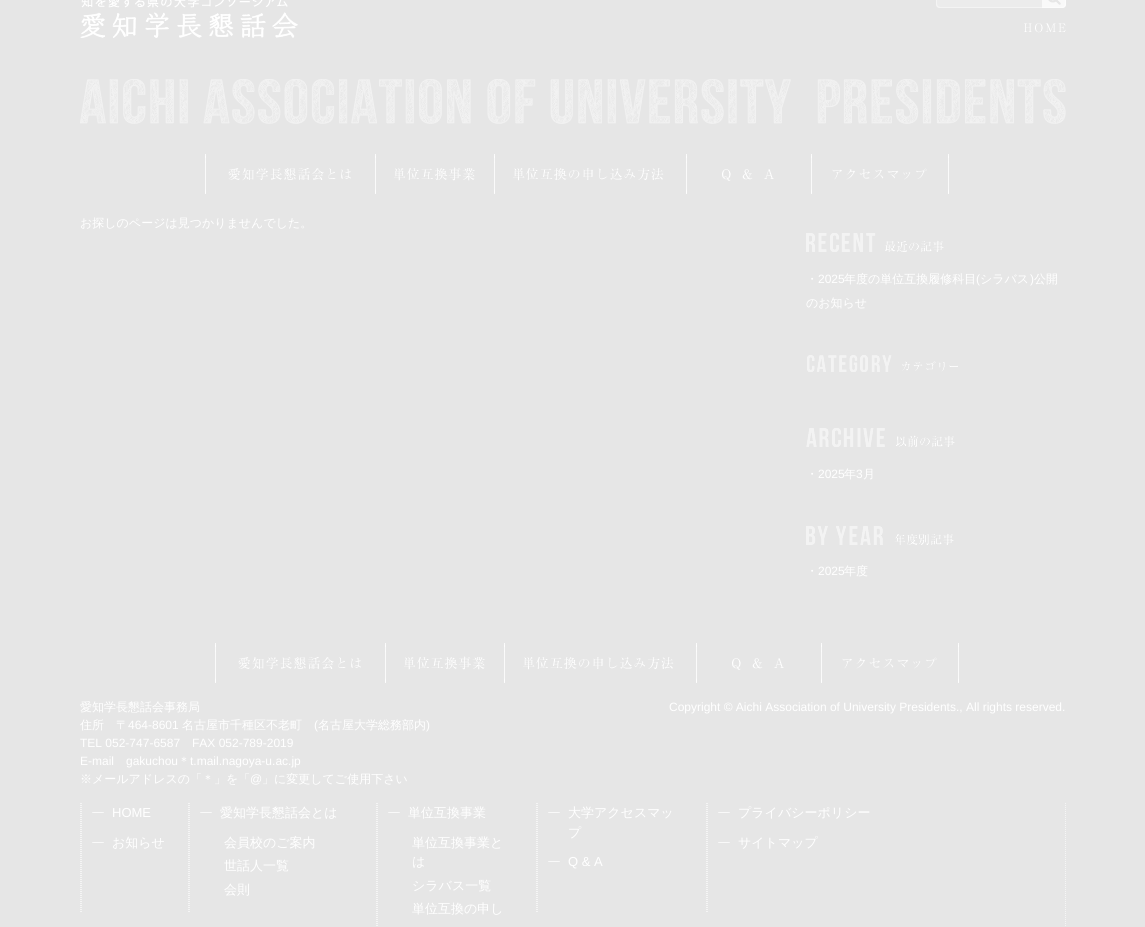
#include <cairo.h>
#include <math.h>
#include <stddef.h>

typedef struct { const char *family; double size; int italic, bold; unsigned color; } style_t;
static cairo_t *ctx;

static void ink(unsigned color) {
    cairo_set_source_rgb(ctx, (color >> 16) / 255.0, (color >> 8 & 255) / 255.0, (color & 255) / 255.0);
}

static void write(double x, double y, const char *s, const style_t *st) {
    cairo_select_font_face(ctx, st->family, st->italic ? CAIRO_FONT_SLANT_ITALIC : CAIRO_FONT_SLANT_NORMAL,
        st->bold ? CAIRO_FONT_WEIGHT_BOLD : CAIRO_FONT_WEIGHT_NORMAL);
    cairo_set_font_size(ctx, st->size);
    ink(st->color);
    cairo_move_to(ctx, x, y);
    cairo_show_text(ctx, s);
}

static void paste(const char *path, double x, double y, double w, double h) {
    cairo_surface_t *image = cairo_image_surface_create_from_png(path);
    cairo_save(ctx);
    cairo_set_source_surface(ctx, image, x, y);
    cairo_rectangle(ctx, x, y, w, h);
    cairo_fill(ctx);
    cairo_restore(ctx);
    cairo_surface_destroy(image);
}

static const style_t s1 = {"WenQuanYi Zen Hei Medium", 12, 0, 0, 0xffffff};
static const style_t s2 = {"Liberation Sans", 12, 0, 0, 0xffffff};
static const style_t s3 = {"Liberation Sans", 13, 0, 0, 0xffffff};
static const style_t s4 = {"WenQuanYi Zen Hei Medium", 13, 0, 0, 0xffffff};

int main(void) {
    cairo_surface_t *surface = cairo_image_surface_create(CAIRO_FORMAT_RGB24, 1145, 927);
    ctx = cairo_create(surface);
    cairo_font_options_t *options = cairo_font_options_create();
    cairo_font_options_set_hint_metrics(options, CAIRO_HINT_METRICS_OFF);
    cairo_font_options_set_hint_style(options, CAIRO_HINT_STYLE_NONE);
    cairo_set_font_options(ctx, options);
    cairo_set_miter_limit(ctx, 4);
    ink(0xe6e6e6);
    cairo_paint(ctx);
    paste("pic1.png", 80, 0, 218, 38);
    paste("pic2.png", 936, 0, 106, 8);
    paste("pic3.png", 1042, 0, 24, 8);
    paste("pic4.png", 1024, 23, 42, 10);
    paste("pic5.png", 80, 79, 986, 45);
    paste("pic6.png", 205, 154, 171, 40);
    paste("pic7.png", 394, 154, 101, 40);
    paste("pic8.png", 513, 154, 174, 40);
    paste("pic9.png", 722, 154, 90, 40);
    paste("pic10.png", 832, 154, 117, 40);
    write(80, 227, "お探しのページは見つかりませんでした。", &s1);
    paste("pic11.png", 806, 233, 138, 19);
    write(806, 283, "・", &s1);
    write(818, 283, "2025", &s2);
    write(844, 283, "年度の単位互換履修科目", &s1);
    write(976, 283, "(", &s2);
    write(980, 283, "シラバス", &s1);
    write(1030, 283, ")", &s2);
    write(1034, 283, "公開", &s1);
    write(806, 307, "のお知らせ", &s1);
    paste("pic12.png", 807, 355, 151, 17);
    paste("pic13.png", 806, 428, 149, 19);
    write(806, 478, "・", &s1);
    write(818, 478, "2025", &s2);
    write(844, 478, "年", &s1);
    write(856, 478, "3", &s2);
    write(863, 478, "月", &s1);
    paste("pic14.png", 806, 526, 148, 19);
    write(806, 575, "・", &s1);
    write(818, 575, "2025", &s2);
    write(844, 575, "年度", &s1);
    paste("pic6.png", 215, 643, 171, 40);
    paste("pic7.png", 404, 643, 101, 40);
    paste("pic8.png", 523, 643, 174, 40);
    paste("pic9.png", 732, 643, 90, 40);
    paste("pic10.png", 842, 643, 117, 40);
    write(80, 711, "愛知学長懇話会事務局", &s1);
    write(80, 729, "住所　〒", &s1);
    write(128, 729, "464-8601", &s2);
    write(182, 729, "名古屋市千種区不老町", &s1);
    write(314, 729, "(", &s2);
    write(318, 729, "名古屋大学総務部内", &s1);
    write(426, 729, ")", &s2);
    write(80, 747, "TEL 052-747-6587", &s2);
    write(192, 747, "FAX 052-789-2019", &s2);
    write(80, 765, "E-mail", &s2);
    write(126, 765, "gakuchou", &s2);
    write(178, 765, "＊", &s1);
    write(190, 765, "t.mail.nagoya-u.ac.jp", &s2);
    write(80, 783, "※メールアドレスの「＊」を「", &s1);
    write(250, 783, "@", &s2);
    write(262, 783, "」に変更してご使用下さい", &s1);
    write(669, 711, "Copyright © Aichi Association of University Presidents., All rights reserved.", &s2);
    paste("pic15.png", 1065, 803, 1, 123);
    paste("pic16.png", 80, 803, 2, 109);
    paste("pic17.png", 92, 812, 12, 1);
    write(112, 817, "HOME", &s3);
    paste("pic17.png", 92, 842, 12, 1);
    write(112, 847, "お知らせ", &s4);
    paste("pic16.png", 188, 803, 2, 109);
    paste("pic18.png", 200, 812, 12, 1);
    write(220, 817, "愛知学長懇話会とは", &s4);
    write(224, 847, "会員校のご案内", &s4);
    write(224, 870, "世話人一覧", &s4);
    write(224, 894, "会則", &s4);
    paste("pic19.png", 376, 803, 2, 123);
    paste("pic17.png", 388, 812, 12, 1);
    write(408, 817, "単位互換事業", &s4);
    write(412, 847, "単位互換事業と", &s4);
    write(412, 866, "は", &s4);
    write(412, 890, "シラバス一覧", &s4);
    write(412, 913, "単位互換の申し", &s4);
    paste("pic16.png", 536, 803, 2, 109);
    paste("pic17.png", 548, 812, 12, 1);
    write(568, 817, "大学アクセスマッ", &s4);
    write(568, 837, "プ", &s4);
    paste("pic17.png", 548, 861, 12, 1);
    write(568, 866, "Q & A", &s3);
    paste("pic16.png", 706, 803, 2, 109);
    paste("pic17.png", 718, 812, 12, 1);
    write(738, 817, "プライバシーポリシー", &s4);
    paste("pic17.png", 718, 842, 12, 1);
    write(738, 847, "サイトマップ", &s4);
    cairo_surface_write_to_png(surface, "screenshot.png");
    cairo_font_options_destroy(options);
    cairo_destroy(ctx);
    cairo_surface_destroy(surface);
    return 0;
}
